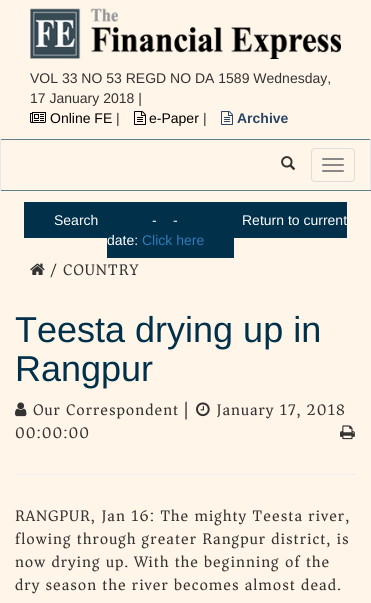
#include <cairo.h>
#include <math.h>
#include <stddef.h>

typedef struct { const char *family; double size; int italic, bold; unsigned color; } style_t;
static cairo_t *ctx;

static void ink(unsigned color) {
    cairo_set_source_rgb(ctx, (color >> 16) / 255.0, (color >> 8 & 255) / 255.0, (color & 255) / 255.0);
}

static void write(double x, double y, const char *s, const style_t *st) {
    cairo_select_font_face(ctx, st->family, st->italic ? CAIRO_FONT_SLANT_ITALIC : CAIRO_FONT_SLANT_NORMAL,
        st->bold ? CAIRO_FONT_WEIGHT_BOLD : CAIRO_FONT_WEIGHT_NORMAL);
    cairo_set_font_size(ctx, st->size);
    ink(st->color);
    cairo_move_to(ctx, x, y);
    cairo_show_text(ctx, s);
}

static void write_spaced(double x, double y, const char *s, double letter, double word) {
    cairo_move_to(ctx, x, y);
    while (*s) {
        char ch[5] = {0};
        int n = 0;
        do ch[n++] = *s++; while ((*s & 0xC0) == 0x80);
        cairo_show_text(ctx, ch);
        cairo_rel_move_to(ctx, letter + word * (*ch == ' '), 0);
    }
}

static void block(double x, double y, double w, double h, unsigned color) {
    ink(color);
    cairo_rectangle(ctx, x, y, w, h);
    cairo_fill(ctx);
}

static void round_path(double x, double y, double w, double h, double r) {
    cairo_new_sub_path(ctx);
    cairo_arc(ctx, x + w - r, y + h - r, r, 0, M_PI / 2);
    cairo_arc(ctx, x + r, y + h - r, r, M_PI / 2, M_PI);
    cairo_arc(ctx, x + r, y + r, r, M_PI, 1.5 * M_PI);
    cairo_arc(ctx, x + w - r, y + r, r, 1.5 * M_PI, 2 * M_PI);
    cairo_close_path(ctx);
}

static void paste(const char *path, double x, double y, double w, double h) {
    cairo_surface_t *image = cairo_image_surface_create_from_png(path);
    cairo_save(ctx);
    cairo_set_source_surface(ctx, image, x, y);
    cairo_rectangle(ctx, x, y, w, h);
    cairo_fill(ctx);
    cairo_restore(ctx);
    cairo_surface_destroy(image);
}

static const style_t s1 = {"Liberation Sans", 14, 0, 0, 0x333333};
static const style_t s2 = {"Liberation Sans", 14, 0, 0, 0x000000};
static const style_t s3 = {"Liberation Sans", 14, 0, 1, 0x294666};
static const style_t s4 = {"Liberation Sans", 14, 0, 0, 0xffffff};
static const style_t s5 = {"Liberation Sans", 14, 0, 0, 0x337ab7};
static const style_t s6 = {"Liberation Sans", 36, 0, 0, 0x00304a};

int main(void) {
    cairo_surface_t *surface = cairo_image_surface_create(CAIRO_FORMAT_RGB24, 371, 603);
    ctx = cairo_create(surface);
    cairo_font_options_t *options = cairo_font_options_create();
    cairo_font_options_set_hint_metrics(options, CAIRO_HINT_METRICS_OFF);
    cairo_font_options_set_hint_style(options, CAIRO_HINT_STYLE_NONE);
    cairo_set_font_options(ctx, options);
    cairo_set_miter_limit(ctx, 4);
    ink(0xfff5e8);
    cairo_paint(ctx);
    paste("pic1.png", 30, 8, 311, 51);
    write(30, 83, "VOL 33 NO 53 REGD NO DA 1589 Wednesday,", &s1);
    write(30, 103, "17 January 2018 |", &s1);
    paste("pic2.png", 30, 112, 16, 11);
    write(50, 123, "Online FE", &s2);
    write(116, 123, "|", &s1);
    paste("pic3.png", 134, 111, 12, 14);
    write(149, 123, "e-Paper", &s2);
    write(203, 123, "|", &s1);
    paste("pic4.png", 221, 111, 12, 14);
    write(237, 123, "Archive", &s3);
    block(0, 139, 371, 1, 0x607d8b);
    block(370, 139, 1, 52, 0xe7e7e7);
    block(0, 190, 371, 1, 0x607d8b);
    block(0, 139, 1, 52, 0xe7e7e7);
    paste("pic5.png", 281, 156, 15, 14);
    round_path(311.5, 148.5, 43, 33, 3.5);
    ink(0xdddddd);
    cairo_set_line_width(ctx, 1);
    cairo_stroke(ctx);
    ink(0x888888);
    round_path(322, 158, 22, 2, 1);
    cairo_fill(ctx);
    round_path(322, 164, 22, 2, 1);
    cairo_fill(ctx);
    round_path(322, 170, 22, 2, 1);
    cairo_fill(ctx);
    block(24, 202, 184, 36, 0x00304a);
    write(54, 225, "Search", &s4);
    write(152, 225, "-", &s4);
    write(173, 225, "-", &s4);
    block(212, 202, 135, 36, 0x00304a);
    write(242, 225, "Return to current", &s4);
    block(208, 202, 4, 20, 0x00304a);
    block(107, 238, 35, 20, 0x00304a);
    write(107, 245, "date:", &s4);
    block(142, 222, 92, 36, 0x00304a);
    write(142, 245, "Click here", &s5);
    paste("pic6.png", 30, 263, 15, 12);
    cairo_select_font_face(ctx, "Asar", CAIRO_FONT_SLANT_NORMAL, CAIRO_FONT_WEIGHT_NORMAL);
    cairo_set_font_size(ctx, 16);
    ink(0x333333);
    write_spaced(50, 275, "/ COUNTRY", 1, 0);
    write(15, 342, "Teesta drying up in", &s6);
    write(15, 381, "Rangpur", &s6);
    paste("pic7.png", 15, 402, 12, 15);
    cairo_select_font_face(ctx, "Asar", CAIRO_FONT_SLANT_NORMAL, CAIRO_FONT_WEIGHT_NORMAL);
    cairo_set_font_size(ctx, 16);
    ink(0x333333);
    write_spaced(33, 415, "Our Correspondent |", 1, 0);
    paste("pic8.png", 196, 402, 14, 15);
    write_spaced(216, 415, "January 17, 2018", 1, 0);
    write_spaced(15, 438, "00:00:00", 1, 0);
    paste("pic9.png", 340, 425, 15, 15);
    block(15, 474, 341, 1, 0xeeeeee);
    ink(0x333333);
    write_spaced(15, 521, "RANGPUR, Jan 16: The mighty Teesta river,", 1, 0);
    write_spaced(15, 544, "flowing through greater Rangpur district, is", 1, 0);
    write_spaced(15, 567, "now drying up. With the beginning of the", 1, 0);
    write_spaced(15, 590, "dry season the river becomes almost dead.", 1, 0);
    cairo_surface_write_to_png(surface, "screenshot.png");
    cairo_font_options_destroy(options);
    cairo_destroy(ctx);
    cairo_surface_destroy(surface);
    return 0;
}
